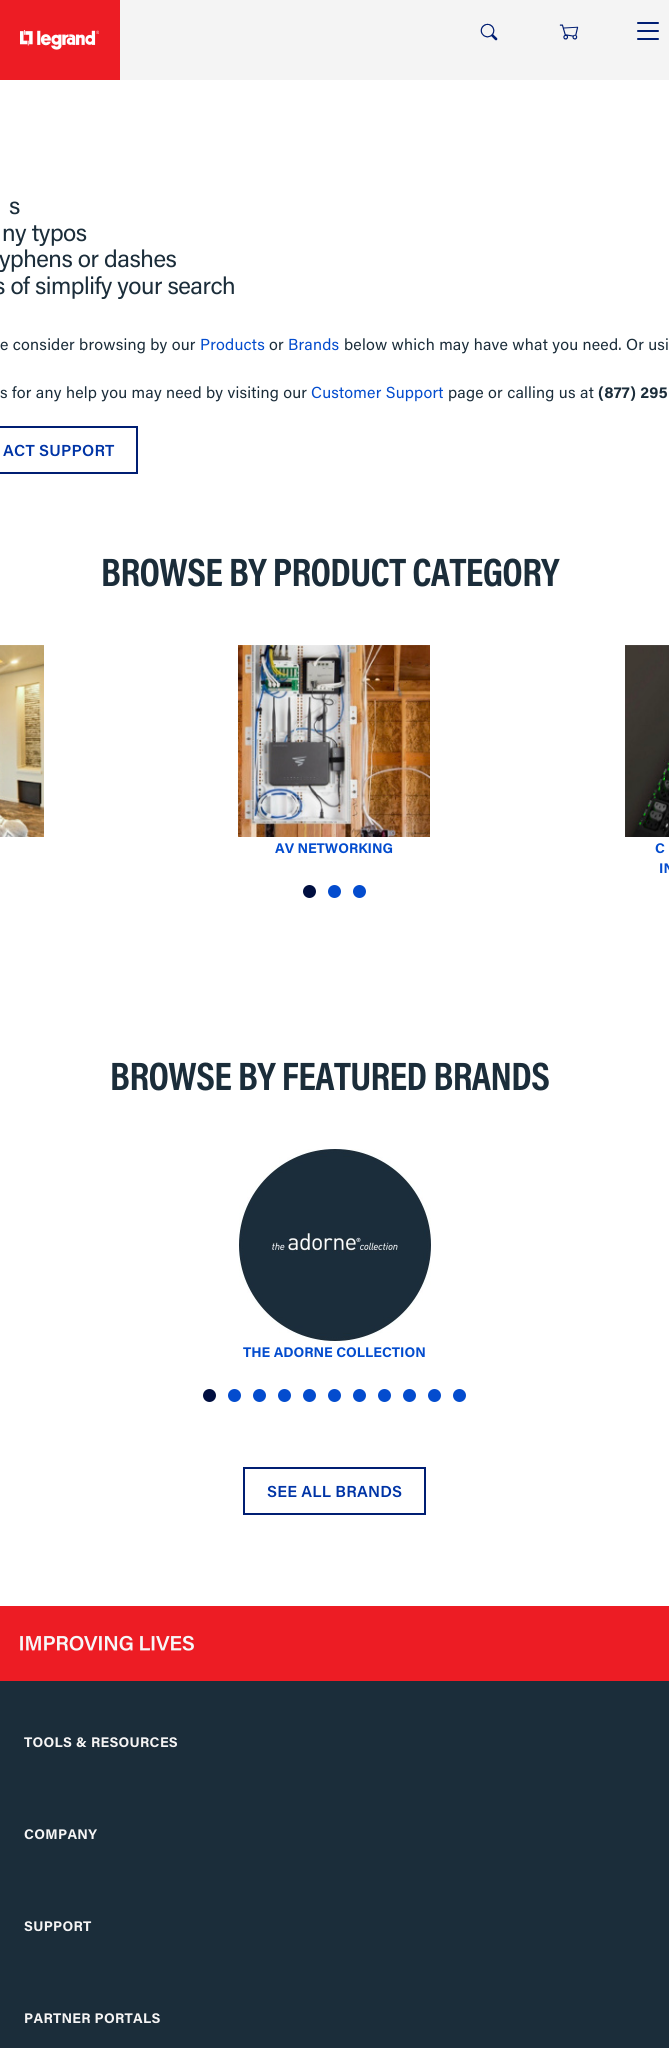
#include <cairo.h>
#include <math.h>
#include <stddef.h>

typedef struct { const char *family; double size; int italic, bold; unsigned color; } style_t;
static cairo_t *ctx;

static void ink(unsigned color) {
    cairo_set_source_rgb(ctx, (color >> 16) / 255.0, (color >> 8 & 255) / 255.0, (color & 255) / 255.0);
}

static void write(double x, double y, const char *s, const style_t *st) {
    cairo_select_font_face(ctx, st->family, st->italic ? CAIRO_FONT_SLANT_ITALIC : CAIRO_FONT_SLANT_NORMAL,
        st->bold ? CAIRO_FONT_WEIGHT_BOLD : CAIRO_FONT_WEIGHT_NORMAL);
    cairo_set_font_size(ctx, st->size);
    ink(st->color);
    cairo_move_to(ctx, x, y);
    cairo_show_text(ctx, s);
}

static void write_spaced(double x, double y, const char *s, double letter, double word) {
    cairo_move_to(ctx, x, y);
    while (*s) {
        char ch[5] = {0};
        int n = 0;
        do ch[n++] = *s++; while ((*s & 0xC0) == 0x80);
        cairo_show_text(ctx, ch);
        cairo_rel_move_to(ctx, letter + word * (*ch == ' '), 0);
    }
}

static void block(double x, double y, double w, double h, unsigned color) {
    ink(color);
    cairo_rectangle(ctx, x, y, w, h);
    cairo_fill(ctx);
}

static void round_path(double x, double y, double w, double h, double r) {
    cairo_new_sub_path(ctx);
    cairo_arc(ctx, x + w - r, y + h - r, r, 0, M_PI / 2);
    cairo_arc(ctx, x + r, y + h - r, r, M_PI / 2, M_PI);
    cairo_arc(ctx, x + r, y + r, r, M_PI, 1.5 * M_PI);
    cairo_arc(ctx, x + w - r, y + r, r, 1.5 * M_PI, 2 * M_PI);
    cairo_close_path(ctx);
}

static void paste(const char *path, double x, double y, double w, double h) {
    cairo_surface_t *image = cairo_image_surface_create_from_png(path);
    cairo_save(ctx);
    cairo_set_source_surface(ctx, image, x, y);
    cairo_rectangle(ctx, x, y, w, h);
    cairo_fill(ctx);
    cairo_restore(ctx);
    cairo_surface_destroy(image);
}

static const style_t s1 = {"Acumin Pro", 14, 0, 1, 0x034cce};

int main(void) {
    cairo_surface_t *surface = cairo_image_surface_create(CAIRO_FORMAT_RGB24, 669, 2048);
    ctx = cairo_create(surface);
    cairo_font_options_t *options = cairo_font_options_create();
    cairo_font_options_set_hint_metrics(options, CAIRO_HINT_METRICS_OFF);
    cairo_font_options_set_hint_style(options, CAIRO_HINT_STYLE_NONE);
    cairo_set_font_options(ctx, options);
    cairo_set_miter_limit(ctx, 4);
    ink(0xffffff);
    cairo_paint(ctx);
    block(120, 0, 549, 80, 0xf4f4f4);
    block(0, 0, 120, 80, 0xed1c24);
    paste("pic1.png", 20, 30, 79, 20);
    paste("pic2.png", 480, 23, 18, 18);
    paste("pic3.png", 559, 24, 20, 16);
    ink(0x001e73);
    round_path(637, 22, 22, 2, 1);
    cairo_fill(ctx);
    round_path(637, 30, 22, 2, 1);
    cairo_fill(ctx);
    round_path(637, 38, 22, 2, 1);
    cairo_fill(ctx);
    cairo_select_font_face(ctx, "Acumin Pro", CAIRO_FONT_SLANT_NORMAL, CAIRO_FONT_WEIGHT_NORMAL);
    cairo_set_font_size(ctx, 24);
    ink(0x1b2d3a);
    write_spaced(9, 214, "s", -0.5, 0);
    write_spaced(2, 241, "ny typos", -0.5, 0);
    write_spaced(-1, 267, "yphens or dashes", -0.5, 0);
    write_spaced(-6, 294, "s of simplify your search", -0.5, 0);
    cairo_set_font_size(ctx, 16);
    write_spaced(0, 350, "e consider browsing by our", 0.2, 0);
    ink(0x034cce);
    write_spaced(200, 350, "Products", 0.2, 0);
    ink(0x1b2d3a);
    write_spaced(269, 350, "or", 0.2, 0);
    ink(0x034cce);
    write_spaced(288, 350, "Brands", 0.2, 0);
    ink(0x1b2d3a);
    write_spaced(344, 350, "below which may have what you need. Or usi", 0.2, 0);
    write_spaced(0, 398, "s for any help you may need by visiting our", 0.2, 0);
    ink(0x034cce);
    write_spaced(311, 398, "Customer Support", 0.2, 0);
    ink(0x1b2d3a);
    write_spaced(448, 398, "page or calling us at", 0.2, 0);
    cairo_select_font_face(ctx, "Acumin Pro", CAIRO_FONT_SLANT_NORMAL, CAIRO_FONT_WEIGHT_BOLD);
    write_spaced(598, 398, "(877) 295", 0.2, 0);
    cairo_rectangle(ctx, -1, 427, 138, 46);
    ink(0x001e73);
    cairo_stroke(ctx);
    cairo_select_font_face(ctx, "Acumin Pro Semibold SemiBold", CAIRO_FONT_SLANT_NORMAL, CAIRO_FONT_WEIGHT_NORMAL);
    ink(0x0034a6);
    write_spaced(3, 456, "ACT SUPPORT", 0.2, 0);
    cairo_select_font_face(ctx, "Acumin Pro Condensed", CAIRO_FONT_SLANT_NORMAL, CAIRO_FONT_WEIGHT_BOLD);
    cairo_set_font_size(ctx, 40);
    ink(0x1b2d3a);
    write_spaced(101, 586, "BROWSE BY PRODUCT CATEGORY", -0.6, 0);
    paste("pic4.png", 0, 645, 44, 192);
    paste("pic5.png", 238, 645, 192, 192);
    write(275, 853, "AV NETWORKING", &s1);
    paste("pic6.png", 625, 645, 44, 192);
    write(655, 853, "C", &s1);
    write(659, 873, "IN", &s1);
    ink(0x000f40);
    cairo_new_path(ctx);
    cairo_arc(ctx, 309.5, 891.5, 6.5, 0, 2 * M_PI);
    cairo_fill(ctx);
    ink(0x034cce);
    cairo_arc(ctx, 334.5, 891.5, 6.5, 0, 2 * M_PI);
    cairo_fill(ctx);
    cairo_arc(ctx, 359.5, 891.5, 6.5, 0, 2 * M_PI);
    cairo_fill(ctx);
    cairo_select_font_face(ctx, "Acumin Pro Condensed", CAIRO_FONT_SLANT_NORMAL, CAIRO_FONT_WEIGHT_BOLD);
    cairo_set_font_size(ctx, 40);
    ink(0x1b2d3a);
    write_spaced(110, 1090, "BROWSE BY FEATURED BRANDS", -0.6, 0);
    paste("pic7.png", 239, 1149, 192, 192);
    write(243, 1357, "THE ADORNE COLLECTION", &s1);
    ink(0x000f40);
    cairo_new_path(ctx);
    cairo_arc(ctx, 209.5, 1395.5, 6.5, 0, 2 * M_PI);
    cairo_fill(ctx);
    ink(0x034cce);
    cairo_arc(ctx, 234.5, 1395.5, 6.5, 0, 2 * M_PI);
    cairo_fill(ctx);
    cairo_arc(ctx, 259.5, 1395.5, 6.5, 0, 2 * M_PI);
    cairo_fill(ctx);
    cairo_arc(ctx, 284.5, 1395.5, 6.5, 0, 2 * M_PI);
    cairo_fill(ctx);
    cairo_arc(ctx, 309.5, 1395.5, 6.5, 0, 2 * M_PI);
    cairo_fill(ctx);
    cairo_arc(ctx, 334.5, 1395.5, 6.5, 0, 2 * M_PI);
    cairo_fill(ctx);
    cairo_arc(ctx, 359.5, 1395.5, 6.5, 0, 2 * M_PI);
    cairo_fill(ctx);
    cairo_arc(ctx, 384.5, 1395.5, 6.5, 0, 2 * M_PI);
    cairo_fill(ctx);
    cairo_arc(ctx, 409.5, 1395.5, 6.5, 0, 2 * M_PI);
    cairo_fill(ctx);
    cairo_arc(ctx, 434.5, 1395.5, 6.5, 0, 2 * M_PI);
    cairo_fill(ctx);
    cairo_arc(ctx, 459.5, 1395.5, 6.5, 0, 2 * M_PI);
    cairo_fill(ctx);
    cairo_rectangle(ctx, 244, 1468, 181, 46);
    ink(0x001e73);
    cairo_stroke(ctx);
    cairo_select_font_face(ctx, "Acumin Pro Semibold SemiBold", CAIRO_FONT_SLANT_NORMAL, CAIRO_FONT_WEIGHT_NORMAL);
    cairo_set_font_size(ctx, 16);
    ink(0x0034a6);
    write_spaced(267, 1497, "SEE ALL BRANDS", 0.2, 0);
    block(0, 1681, 669, 367, 0x1b2d3a);
    block(0, 1606, 669, 75, 0xed1c24);
    paste("pic8.png", 20, 1635, 174, 16);
    cairo_select_font_face(ctx, "Acumin Pro", CAIRO_FONT_SLANT_NORMAL, CAIRO_FONT_WEIGHT_BOLD);
    cairo_set_font_size(ctx, 14);
    ink(0xf6f5f5);
    write_spaced(24, 1747, "TOOLS & RESOURCES", 0.3, 0);
    write_spaced(24, 1839, "COMPANY", 0.3, 0);
    write_spaced(24, 1931, "SUPPORT", 0.3, 0);
    write_spaced(24, 2023, "PARTNER PORTALS", 0.3, 0);
    cairo_surface_write_to_png(surface, "screenshot.png");
    cairo_font_options_destroy(options);
    cairo_destroy(ctx);
    cairo_surface_destroy(surface);
    return 0;
}
